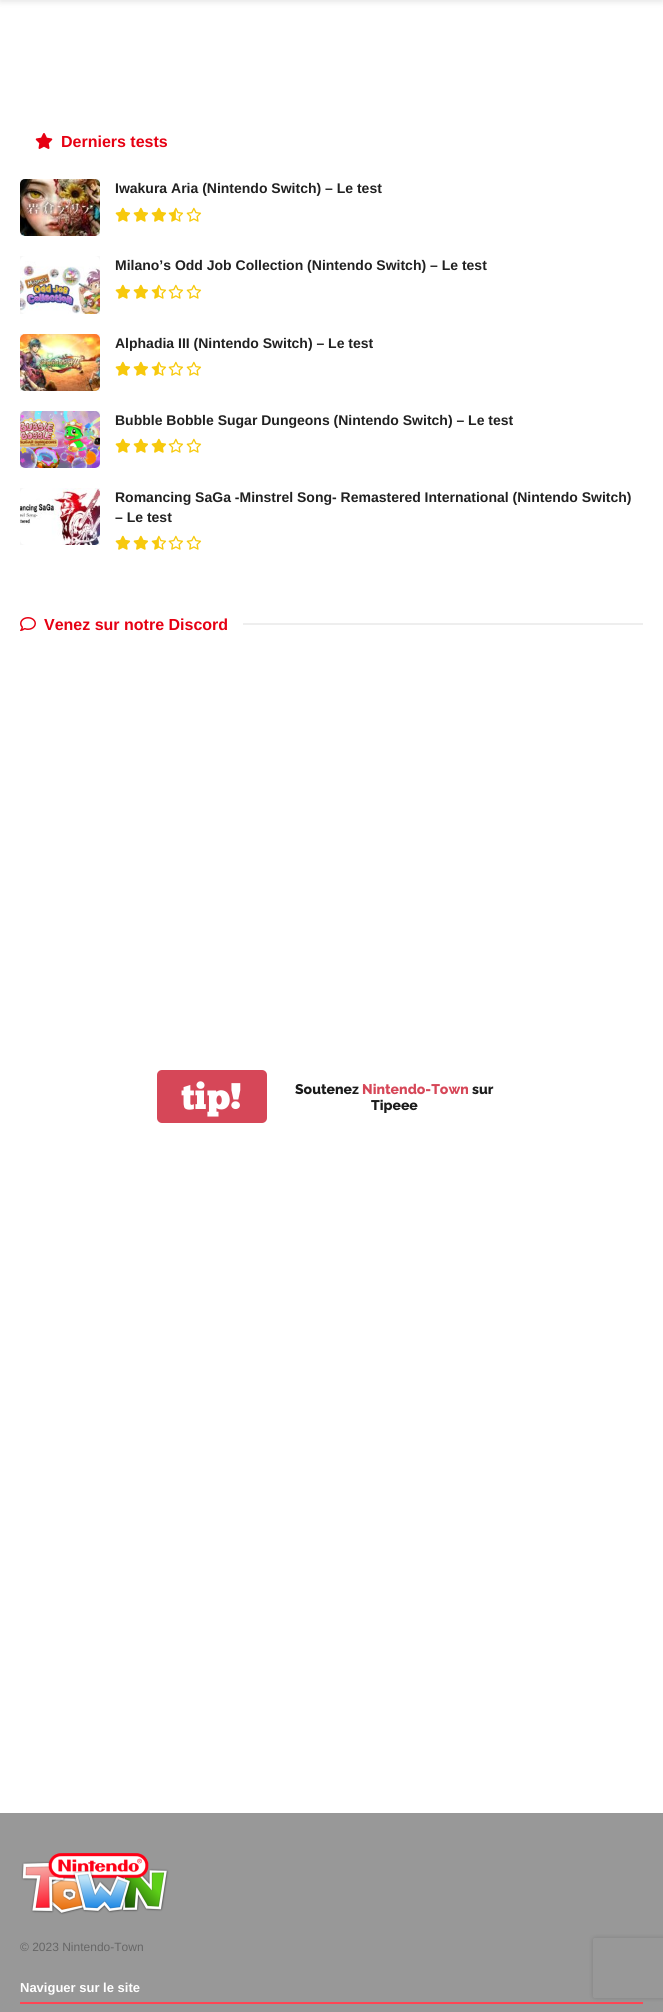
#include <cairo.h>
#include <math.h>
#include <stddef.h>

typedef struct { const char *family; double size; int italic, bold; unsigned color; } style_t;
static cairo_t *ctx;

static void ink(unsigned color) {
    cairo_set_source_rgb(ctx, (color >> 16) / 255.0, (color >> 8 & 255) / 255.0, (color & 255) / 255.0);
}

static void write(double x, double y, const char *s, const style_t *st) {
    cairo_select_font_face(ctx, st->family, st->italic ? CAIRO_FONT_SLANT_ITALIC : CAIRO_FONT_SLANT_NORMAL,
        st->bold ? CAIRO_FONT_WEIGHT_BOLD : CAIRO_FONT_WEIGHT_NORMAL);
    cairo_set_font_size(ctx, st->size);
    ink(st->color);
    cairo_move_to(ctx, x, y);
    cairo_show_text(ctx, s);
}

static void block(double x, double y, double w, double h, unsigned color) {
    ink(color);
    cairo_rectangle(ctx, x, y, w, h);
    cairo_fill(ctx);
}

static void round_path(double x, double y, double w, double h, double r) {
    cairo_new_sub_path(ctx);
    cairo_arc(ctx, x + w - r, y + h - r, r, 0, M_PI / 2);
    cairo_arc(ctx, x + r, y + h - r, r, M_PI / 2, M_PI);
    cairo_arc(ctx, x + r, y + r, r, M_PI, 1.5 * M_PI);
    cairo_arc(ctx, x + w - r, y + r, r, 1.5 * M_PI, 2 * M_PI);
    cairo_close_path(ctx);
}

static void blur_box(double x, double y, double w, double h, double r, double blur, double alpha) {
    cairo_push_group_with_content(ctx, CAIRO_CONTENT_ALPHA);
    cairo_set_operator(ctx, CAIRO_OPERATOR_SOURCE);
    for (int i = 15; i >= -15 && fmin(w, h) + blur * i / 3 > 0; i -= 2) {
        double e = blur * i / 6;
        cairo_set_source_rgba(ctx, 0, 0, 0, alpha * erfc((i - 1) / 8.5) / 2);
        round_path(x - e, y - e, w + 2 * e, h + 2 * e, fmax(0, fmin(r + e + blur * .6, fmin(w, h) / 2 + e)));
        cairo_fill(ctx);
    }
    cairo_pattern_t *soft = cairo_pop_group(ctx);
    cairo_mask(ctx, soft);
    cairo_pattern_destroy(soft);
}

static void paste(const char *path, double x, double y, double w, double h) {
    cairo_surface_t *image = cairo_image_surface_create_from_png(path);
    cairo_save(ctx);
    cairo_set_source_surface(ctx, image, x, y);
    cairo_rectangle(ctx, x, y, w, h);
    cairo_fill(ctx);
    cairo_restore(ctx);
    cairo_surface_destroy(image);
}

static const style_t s1 = {"Liberation Sans", 16, 0, 1, 0xe60012};
static const style_t s2 = {"Liberation Sans", 14, 0, 1, 0x212121};
static const style_t s3 = {"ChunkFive", 37, 0, 0, 0xffffff};
static const style_t s4 = {"Raleway Thin", 14, 0, 0, 0x1b1b1b};
static const style_t s5 = {"Raleway Thin", 14, 0, 0, 0xd64758};
static const style_t s6 = {"Liberation Sans", 12, 0, 0, 0x666666};
static const style_t s7 = {"Liberation Sans", 13, 0, 1, 0xffffff};

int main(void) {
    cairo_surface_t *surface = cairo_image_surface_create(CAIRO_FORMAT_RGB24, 663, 2012);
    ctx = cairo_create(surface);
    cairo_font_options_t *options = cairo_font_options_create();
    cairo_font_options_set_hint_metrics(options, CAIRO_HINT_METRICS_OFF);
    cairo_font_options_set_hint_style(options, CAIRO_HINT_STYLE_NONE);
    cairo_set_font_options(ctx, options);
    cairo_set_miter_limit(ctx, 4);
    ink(0xffffff);
    cairo_paint(ctx);
    ink(0x000000);
    blur_box(0, -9, 663, 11, 0, 3, 0.1);
    paste("pic1.png", 35, 133, 18, 16);
    write(61, 147, "Derniers tests", &s1);
    block(20, 179, 80, 57, 0xf7f7f7);
    paste("pic2.png", 20, 179, 80, 57);
    write(115, 193, "Iwakura Aria (Nintendo Switch) – Le test", &s2);
    paste("pic3.png", 115, 207, 16, 15);
    paste("pic3.png", 133, 207, 16, 15);
    paste("pic3.png", 151, 207, 16, 15);
    paste("pic4.png", 168, 207, 16, 15);
    paste("pic5.png", 186, 207, 16, 15);
    block(20, 256, 80, 58, 0xf7f7f7);
    paste("pic6.png", 20, 256, 80, 58);
    write(115, 270, "Milano’s Odd Job Collection (Nintendo Switch) – Le test", &s2);
    paste("pic3.png", 115, 284, 16, 15);
    paste("pic3.png", 133, 284, 16, 15);
    paste("pic4.png", 151, 284, 16, 15);
    paste("pic5.png", 168, 284, 16, 15);
    paste("pic5.png", 186, 284, 16, 15);
    block(20, 334, 80, 57, 0xf7f7f7);
    paste("pic7.png", 20, 334, 80, 57);
    write(115, 348, "Alphadia III (Nintendo Switch) – Le test", &s2);
    paste("pic3.png", 115, 361, 16, 15);
    paste("pic3.png", 133, 361, 16, 15);
    paste("pic4.png", 151, 361, 16, 15);
    paste("pic5.png", 168, 361, 16, 15);
    paste("pic5.png", 186, 361, 16, 15);
    block(20, 411, 80, 57, 0xf7f7f7);
    paste("pic8.png", 20, 411, 80, 57);
    write(115, 425, "Bubble Bobble Sugar Dungeons (Nintendo Switch) – Le test", &s2);
    paste("pic3.png", 115, 438, 16, 15);
    paste("pic3.png", 133, 438, 16, 15);
    paste("pic3.png", 151, 438, 16, 15);
    paste("pic5.png", 168, 438, 16, 15);
    paste("pic5.png", 186, 438, 16, 15);
    block(20, 488, 80, 57, 0xf7f7f7);
    paste("pic9.png", 20, 488, 80, 57);
    write(115, 502, "Romancing SaGa -Minstrel Song- Remastered International (Nintendo Switch)", &s2);
    write(115, 522, "– Le test", &s2);
    paste("pic3.png", 115, 535, 16, 15);
    paste("pic3.png", 133, 535, 16, 15);
    paste("pic4.png", 151, 535, 16, 15);
    paste("pic5.png", 168, 535, 16, 15);
    paste("pic5.png", 186, 535, 16, 15);
    paste("pic10.png", 20, 617, 16, 14);
    write(44, 630, "Venez sur notre Discord", &s1);
    block(243, 623, 400, 2, 0xeeeeee);
    ink(0xd64758);
    round_path(157, 1070, 110, 53, 5);
    cairo_fill(ctx);
    write(181, 1109, "tip!", &s3);
    write(295, 1094, "Soutenez", &s4);
    write(362, 1094, "Nintendo-Town", &s5);
    write(472, 1094, "sur", &s4);
    write(371, 1110, "Tipeee", &s4);
    block(0, 1813, 663, 199, 0x989898);
    paste("pic11.png", 21, 1853, 148, 62);
    write(20, 1951, "© 2023 Nintendo-Town", &s6);
    block(20, 2002, 623, 2, 0xff4554);
    write(20, 1992, "Naviguer sur le site", &s7);
    cairo_save(ctx);
    cairo_set_fill_rule(ctx, CAIRO_FILL_RULE_EVEN_ODD);
    cairo_new_path(ctx);
    cairo_move_to(ctx, 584, 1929);
    cairo_line_to(ctx, 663, 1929);
    cairo_line_to(ctx, 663, 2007);
    cairo_line_to(ctx, 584, 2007);
    cairo_close_path(ctx);
    cairo_move_to(ctx, 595, 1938);
    cairo_line_to(ctx, 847, 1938);
    cairo_curve_to(ctx, 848, 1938, 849, 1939, 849, 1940);
    cairo_line_to(ctx, 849, 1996);
    cairo_curve_to(ctx, 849, 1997, 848, 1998, 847, 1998);
    cairo_line_to(ctx, 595, 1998);
    cairo_curve_to(ctx, 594, 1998, 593, 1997, 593, 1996);
    cairo_line_to(ctx, 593, 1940);
    cairo_curve_to(ctx, 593, 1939, 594, 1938, 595, 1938);
    cairo_close_path(ctx);
    cairo_clip(ctx);
    ink(0x808080);
    blur_box(593, 1938, 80, 60, 2, 2.5, 1);
    cairo_restore(ctx);
    cairo_surface_write_to_png(surface, "screenshot.png");
    cairo_font_options_destroy(options);
    cairo_destroy(ctx);
    cairo_surface_destroy(surface);
    return 0;
}
